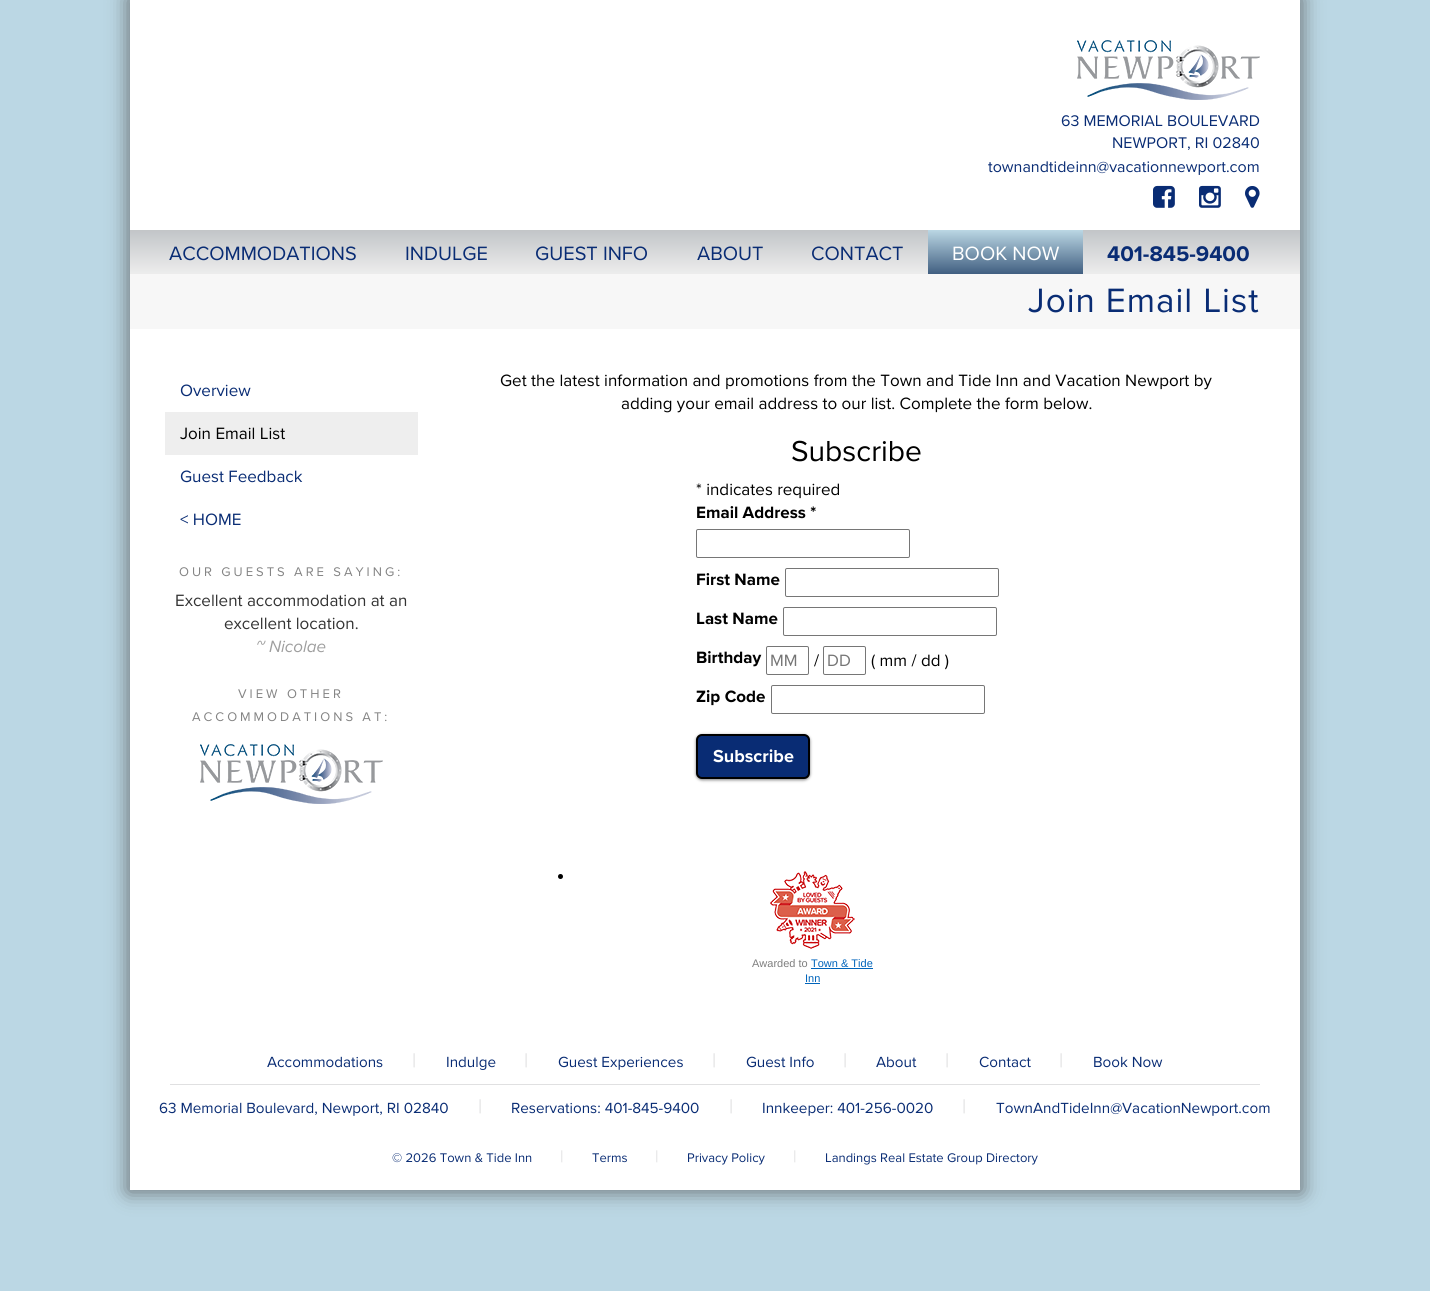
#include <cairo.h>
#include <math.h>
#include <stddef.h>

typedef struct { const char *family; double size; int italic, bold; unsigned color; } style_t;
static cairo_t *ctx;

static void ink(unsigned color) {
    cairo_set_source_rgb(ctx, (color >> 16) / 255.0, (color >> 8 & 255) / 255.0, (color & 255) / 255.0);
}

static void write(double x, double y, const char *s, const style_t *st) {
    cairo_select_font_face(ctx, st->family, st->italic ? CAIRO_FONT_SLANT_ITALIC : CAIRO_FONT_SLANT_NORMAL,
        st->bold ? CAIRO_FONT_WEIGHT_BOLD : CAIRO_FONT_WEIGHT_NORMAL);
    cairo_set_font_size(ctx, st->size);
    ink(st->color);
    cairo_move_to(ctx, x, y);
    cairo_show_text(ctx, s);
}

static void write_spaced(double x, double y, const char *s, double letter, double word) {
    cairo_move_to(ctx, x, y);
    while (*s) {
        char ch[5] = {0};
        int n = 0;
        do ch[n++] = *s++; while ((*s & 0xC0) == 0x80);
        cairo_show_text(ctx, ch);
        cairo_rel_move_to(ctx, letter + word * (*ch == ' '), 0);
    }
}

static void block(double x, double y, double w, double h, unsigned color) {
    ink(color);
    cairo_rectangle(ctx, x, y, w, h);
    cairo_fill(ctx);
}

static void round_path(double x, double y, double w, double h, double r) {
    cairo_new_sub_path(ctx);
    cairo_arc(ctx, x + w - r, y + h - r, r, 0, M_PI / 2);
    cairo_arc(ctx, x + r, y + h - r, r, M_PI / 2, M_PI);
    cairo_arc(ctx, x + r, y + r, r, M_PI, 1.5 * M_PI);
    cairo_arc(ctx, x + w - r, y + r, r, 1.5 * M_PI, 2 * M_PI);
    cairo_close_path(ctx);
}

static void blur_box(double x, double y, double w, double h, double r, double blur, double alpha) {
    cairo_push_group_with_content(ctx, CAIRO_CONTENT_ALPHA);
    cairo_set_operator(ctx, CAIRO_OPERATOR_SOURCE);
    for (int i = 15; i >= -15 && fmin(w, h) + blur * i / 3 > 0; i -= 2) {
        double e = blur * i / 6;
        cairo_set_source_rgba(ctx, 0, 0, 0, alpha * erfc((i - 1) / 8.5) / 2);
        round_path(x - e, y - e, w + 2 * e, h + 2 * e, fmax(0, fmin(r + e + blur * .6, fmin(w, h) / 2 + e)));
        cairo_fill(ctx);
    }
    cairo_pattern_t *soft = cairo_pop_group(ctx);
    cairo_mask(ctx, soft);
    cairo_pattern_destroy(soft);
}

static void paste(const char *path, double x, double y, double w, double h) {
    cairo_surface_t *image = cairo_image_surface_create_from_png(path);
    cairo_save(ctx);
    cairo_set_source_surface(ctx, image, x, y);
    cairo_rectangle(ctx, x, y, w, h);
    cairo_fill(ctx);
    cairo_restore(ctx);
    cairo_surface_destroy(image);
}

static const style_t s1 = {"Proxima Nova", 16, 0, 0, 0x092c74};
static const style_t s2 = {"Proxima Nova", 20, 0, 0, 0x092c74};
static const style_t s3 = {"Proxima Nova", 20, 0, 0, 0xffffff};
static const style_t s4 = {"Proxima Nova", 22, 0, 1, 0x092c74};
static const style_t s5 = {"Proxima Nova", 17, 0, 0, 0x092c74};
static const style_t s6 = {"Proxima Nova", 17, 0, 0, 0x000000};
static const style_t s7 = {"Proxima Nova", 17, 0, 0, 0x333333};
static const style_t s8 = {"Proxima Nova", 17, 1, 0, 0x9e9e9e};
static const style_t s9 = {"Proxima Nova", 30, 0, 0, 0x000000};
static const style_t s10 = {"Proxima Nova", 17, 0, 1, 0x000000};
static const style_t s11 = {"Proxima Nova", 17, 0, 0, 0x757575};
static const style_t s12 = {"Proxima Nova", 18, 0, 1, 0xffffff};
static const style_t s13 = {"Liberation Sans", 11, 0, 0, 0x7e7e7e};
static const style_t s14 = {"Liberation Sans", 11, 0, 0, 0x0064bb};
static const style_t s15 = {"Proxima Nova", 15.25, 0, 0, 0x092c74};
static const style_t s16 = {"Proxima Nova", 20, 0, 0, 0xe0e0e1};
static const style_t s17 = {"Proxima Nova", 13, 0, 0, 0x092c74};
static const style_t s18 = {"Proxima Nova", 17, 0, 0, 0xe0e0e1};

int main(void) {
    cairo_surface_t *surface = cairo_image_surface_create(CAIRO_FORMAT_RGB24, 1430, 1291);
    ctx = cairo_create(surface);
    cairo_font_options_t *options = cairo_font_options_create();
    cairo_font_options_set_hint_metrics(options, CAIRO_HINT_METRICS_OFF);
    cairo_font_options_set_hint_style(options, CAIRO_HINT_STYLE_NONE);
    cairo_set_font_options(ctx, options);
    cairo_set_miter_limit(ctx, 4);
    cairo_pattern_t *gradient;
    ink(0xbbd7e4);
    cairo_paint(ctx);
    ink(0x4d4d4d);
    blur_box(128, -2, 1174, 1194, 0, 10, 0.75);
    block(130, 0, 1170, 1190, 0xffffff);
    paste("pic1.png", 1077, 40, 183, 60);
    write(1061, 126, "63 MEMORIAL BOULEVARD", &s1);
    write(1112, 148, "NEWPORT, RI 02840", &s1);
    write(988, 172, "townandtideinn@vacationnewport.com", &s1);
    paste("pic2.png", 1153, 185, 22, 23);
    paste("pic3.png", 1199, 185, 22, 23);
    paste("pic4.png", 1245, 186, 15, 22);
    gradient = cairo_pattern_create_linear(715, 230, 715, 274);
    cairo_pattern_add_color_stop_rgba(gradient, 0, 0.761, 0.773, 0.784, 1);
    cairo_pattern_add_color_stop_rgba(gradient, 1, 0.929, 0.929, 0.929, 1);
    cairo_set_source(ctx, gradient);
    cairo_pattern_destroy(gradient);
    cairo_rectangle(ctx, 130, 230, 1170, 44);
    cairo_fill(ctx);
    write(169, 260, "ACCOMMODATIONS", &s2);
    write(405, 260, "INDULGE", &s2);
    write(535, 260, "GUEST INFO", &s2);
    write(697, 260, "ABOUT", &s2);
    write(811, 260, "CONTACT", &s2);
    gradient = cairo_pattern_create_linear(1006, 230, 1006, 274);
    cairo_pattern_add_color_stop_rgba(gradient, 0, 0.255, 0.373, 0.506, 1);
    cairo_pattern_add_color_stop_rgba(gradient, 0, 0.761, 0.773, 0.784, 1);
    cairo_pattern_add_color_stop_rgba(gradient, 0, 0.733, 0.843, 0.894, 1);
    cairo_pattern_add_color_stop_rgba(gradient, 1, 0.255, 0.373, 0.506, 1);
    cairo_set_source(ctx, gradient);
    cairo_pattern_destroy(gradient);
    cairo_rectangle(ctx, 928, 230, 155, 44);
    cairo_fill(ctx);
    write(952, 260, "BOOK NOW", &s3);
    write(1107, 261, "401-845-9400", &s4);
    block(130, 274, 1170, 55, 0xf7f7f7);
    cairo_select_font_face(ctx, "Proxima Nova", CAIRO_FONT_SLANT_NORMAL, CAIRO_FONT_WEIGHT_NORMAL);
    cairo_set_font_size(ctx, 35);
    ink(0x092c74);
    write_spaced(1028, 312, "Join Email List", 1, 0);
    write(180, 396, "Overview", &s5);
    block(165, 412, 253, 43, 0xeeeeee);
    write(180, 439, "Join Email List", &s6);
    write(180, 482, "Guest Feedback", &s5);
    write(180, 525, "< HOME", &s5);
    cairo_set_font_size(ctx, 13);
    ink(0x848484);
    write_spaced(179, 576, "OUR GUESTS ARE SAYING:", 3, 0);
    write(175, 606, "Excellent accommodation at an", &s7);
    write(224, 629, "excellent location.", &s7);
    write(256, 652, "~ Nicolae", &s8);
    cairo_select_font_face(ctx, "Proxima Nova", CAIRO_FONT_SLANT_NORMAL, CAIRO_FONT_WEIGHT_NORMAL);
    cairo_set_font_size(ctx, 13);
    ink(0x848484);
    write_spaced(238, 698, "VIEW OTHER", 3, 0);
    write_spaced(192, 721, "ACCOMMODATIONS AT:", 3, 0);
    paste("pic1.png", 200, 744, 183, 60);
    write(500, 386, "Get the latest information and promotions from the Town and Tide Inn and Vacation Newport by", &s6);
    write(621, 409, "adding your email address to our list. Complete the form below.", &s6);
    write(791, 461, "Subscribe", &s9);
    write(696, 495, "* indicates required", &s6);
    write(696, 518, "Email Address *", &s10);
    round_path(696.5, 529.5, 213, 28, 1.5);
    ink(0x767676);
    cairo_set_line_width(ctx, 1);
    cairo_stroke(ctx);
    write(696, 585, "First Name", &s10);
    round_path(785.5, 568.5, 213, 28, 1.5);
    ink(0x767676);
    cairo_stroke(ctx);
    write(696, 624, "Last Name", &s10);
    round_path(783.5, 607.5, 213, 28, 1.5);
    ink(0x767676);
    cairo_stroke(ctx);
    write(696, 663, "Birthday", &s10);
    round_path(766.5, 646.5, 42, 28, 1.5);
    ink(0x767676);
    cairo_stroke(ctx);
    write(770, 666, "MM", &s11);
    write(814, 666, "/", &s6);
    round_path(823.5, 646.5, 42, 28, 1.5);
    ink(0x767676);
    cairo_stroke(ctx);
    write(827, 666, "DD", &s11);
    write(871, 666, "( mm / dd )", &s6);
    write(696, 702, "Zip Code", &s10);
    round_path(771.5, 685.5, 213, 28, 1.5);
    ink(0x767676);
    cairo_stroke(ctx);
    ink(0x000000);
    blur_box(696, 735, 114, 45, 6, 1.5, 0.5);
    ink(0x092c74);
    round_path(697, 735, 112, 43, 5);
    cairo_fill_preserve(ctx);
    ink(0x000000);
    cairo_set_line_width(ctx, 2);
    cairo_stroke(ctx);
    write(713, 762, "Subscribe", &s12);
    ink(0x000000);
    cairo_new_path(ctx);
    cairo_arc(ctx, 560.5, 876.5, 2.5, 0, 2 * M_PI);
    cairo_fill(ctx);
    paste("pic5.png", 770, 871, 85, 78);
    write(752, 967, "Awarded to", &s13);
    write(811, 967, "Town & Tide", &s14);
    block(811, 968, 62, 1, 0x0064bb);
    write(805, 982, "Inn", &s14);
    block(805, 983, 15, 1, 0x0064bb);
    write(267, 1067, "Accommodations", &s15);
    write(412, 1067, "|", &s16);
    write(446, 1067, "Indulge", &s15);
    write(524, 1067, "|", &s16);
    write(558, 1067, "Guest Experiences", &s15);
    write(712, 1067, "|", &s16);
    write(746, 1067, "Guest Info", &s15);
    write(843, 1067, "|", &s16);
    write(876, 1067, "About", &s15);
    write(945, 1067, "|", &s16);
    write(979, 1067, "Contact", &s15);
    write(1059, 1067, "|", &s16);
    write(1093, 1067, "Book Now", &s15);
    block(170, 1084, 1090, 1, 0xe0e0e1);
    write(159, 1113, "63 Memorial Boulevard, Newport, RI 02840", &s15);
    write(478, 1113, "|", &s16);
    write(511, 1113, "Reservations: 401-845-9400", &s15);
    write(729, 1113, "|", &s16);
    write(762, 1113, "Innkeeper: 401-256-0020", &s15);
    write(962, 1113, "|", &s16);
    write(996, 1113, "TownAndTideInn@VacationNewport.com", &s15);
    write(392, 1162, "© 2026 Town & Tide Inn", &s17);
    write(560, 1162, "|", &s18);
    write(592, 1162, "Terms", &s17);
    write(655, 1162, "|", &s18);
    write(687, 1162, "Privacy Policy", &s17);
    write(793, 1162, "|", &s18);
    write(825, 1162, "Landings Real Estate Group Directory", &s17);
    cairo_surface_write_to_png(surface, "screenshot.png");
    cairo_font_options_destroy(options);
    cairo_destroy(ctx);
    cairo_surface_destroy(surface);
    return 0;
}
